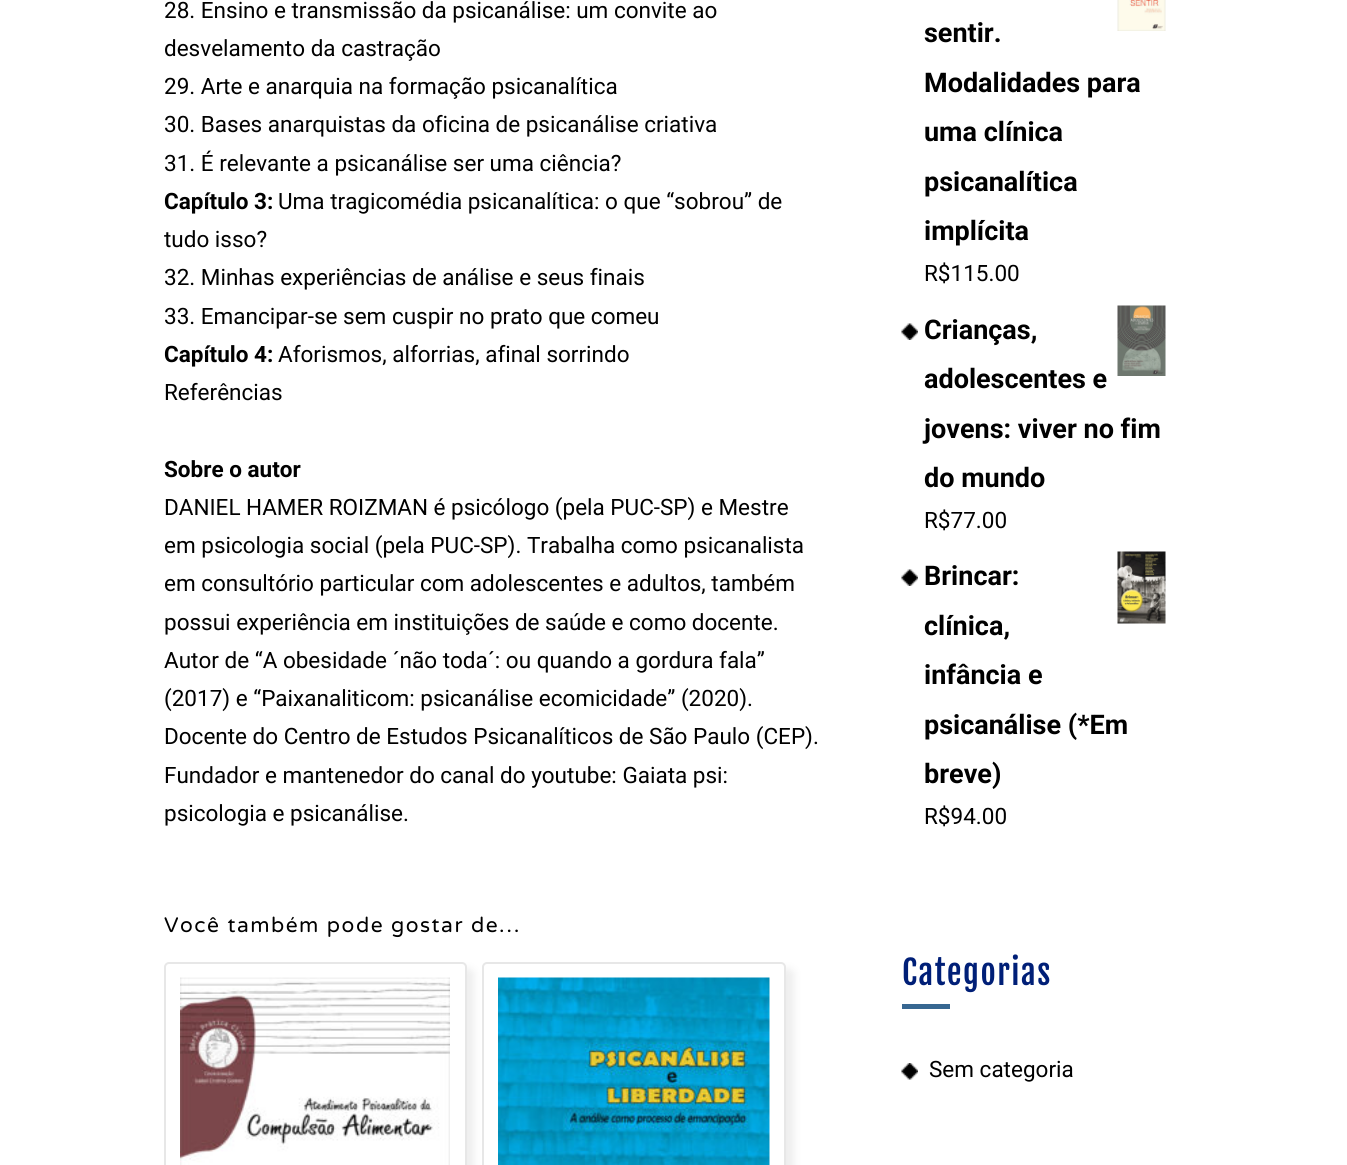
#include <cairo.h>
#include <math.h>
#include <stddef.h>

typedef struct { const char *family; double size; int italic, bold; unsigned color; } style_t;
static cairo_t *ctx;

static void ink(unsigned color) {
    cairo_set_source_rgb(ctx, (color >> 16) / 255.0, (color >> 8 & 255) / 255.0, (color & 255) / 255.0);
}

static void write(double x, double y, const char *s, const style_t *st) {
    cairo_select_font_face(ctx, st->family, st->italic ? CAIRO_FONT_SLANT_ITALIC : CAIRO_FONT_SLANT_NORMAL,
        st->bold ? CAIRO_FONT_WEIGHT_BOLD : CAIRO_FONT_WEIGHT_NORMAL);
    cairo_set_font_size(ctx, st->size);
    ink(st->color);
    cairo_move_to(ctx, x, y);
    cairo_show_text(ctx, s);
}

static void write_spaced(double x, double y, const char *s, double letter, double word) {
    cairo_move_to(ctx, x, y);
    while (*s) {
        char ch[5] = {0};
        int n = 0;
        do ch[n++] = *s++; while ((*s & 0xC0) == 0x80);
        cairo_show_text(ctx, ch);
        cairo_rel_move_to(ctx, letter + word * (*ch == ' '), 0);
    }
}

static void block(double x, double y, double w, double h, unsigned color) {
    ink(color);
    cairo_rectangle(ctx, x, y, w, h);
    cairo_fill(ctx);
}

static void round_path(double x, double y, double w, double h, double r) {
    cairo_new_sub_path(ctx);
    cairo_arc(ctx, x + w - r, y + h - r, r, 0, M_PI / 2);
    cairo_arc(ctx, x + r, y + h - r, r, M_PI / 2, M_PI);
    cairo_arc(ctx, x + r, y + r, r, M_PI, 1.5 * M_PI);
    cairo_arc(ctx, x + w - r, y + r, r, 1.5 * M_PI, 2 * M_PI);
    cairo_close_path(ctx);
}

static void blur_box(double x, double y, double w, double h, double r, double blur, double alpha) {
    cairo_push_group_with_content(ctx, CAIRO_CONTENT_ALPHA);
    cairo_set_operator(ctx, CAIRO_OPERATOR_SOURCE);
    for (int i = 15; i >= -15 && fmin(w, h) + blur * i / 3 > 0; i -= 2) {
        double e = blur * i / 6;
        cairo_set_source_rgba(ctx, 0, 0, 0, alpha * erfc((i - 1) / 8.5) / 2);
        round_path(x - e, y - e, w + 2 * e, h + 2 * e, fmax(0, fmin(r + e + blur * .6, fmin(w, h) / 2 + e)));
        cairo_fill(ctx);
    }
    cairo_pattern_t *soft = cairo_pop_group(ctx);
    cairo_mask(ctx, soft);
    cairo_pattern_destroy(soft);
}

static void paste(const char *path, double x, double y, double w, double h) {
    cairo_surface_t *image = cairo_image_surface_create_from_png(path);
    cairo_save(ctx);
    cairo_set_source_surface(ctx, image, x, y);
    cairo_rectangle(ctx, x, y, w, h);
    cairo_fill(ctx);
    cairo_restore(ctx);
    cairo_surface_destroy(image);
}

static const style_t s1 = {"Roboto", 22.5, 0, 0, 0x000000};
static const style_t s2 = {"Roboto", 22.5, 0, 1, 0x000000};
static const style_t s3 = {"Roboto", 27, 0, 1, 0x000000};

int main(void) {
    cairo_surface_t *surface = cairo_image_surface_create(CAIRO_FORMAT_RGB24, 1347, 1165);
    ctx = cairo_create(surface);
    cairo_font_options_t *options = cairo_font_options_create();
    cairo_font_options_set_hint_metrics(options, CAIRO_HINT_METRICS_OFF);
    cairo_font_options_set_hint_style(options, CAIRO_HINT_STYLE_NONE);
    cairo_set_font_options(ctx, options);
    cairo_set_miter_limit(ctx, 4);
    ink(0xffffff);
    cairo_paint(ctx);
    write(164, 18, "28. Ensino e transmissão da psicanálise: um convite ao", &s1);
    write(164, 56, "desvelamento da castração", &s1);
    write(164, 94, "29. Arte e anarquia na formação psicanalítica", &s1);
    write(164, 132, "30. Bases anarquistas da oficina de psicanálise criativa", &s1);
    write(164, 171, "31. É relevante a psicanálise ser uma ciência?", &s1);
    write(164, 209, "Capítulo 3:", &s2);
    write(278, 209, "Uma tragicomédia psicanalítica: o que “sobrou” de", &s1);
    write(164, 247, "tudo isso?", &s1);
    write(164, 285, "32. Minhas experiências de análise e seus finais", &s1);
    write(164, 324, "33. Emancipar-se sem cuspir no prato que comeu", &s1);
    write(164, 362, "Capítulo 4:", &s2);
    write(278, 362, "Aforismos, alforrias, afinal sorrindo", &s1);
    write(164, 400, "Referências", &s1);
    write(164, 477, "Sobre o autor", &s2);
    write(164, 515, "DANIEL HAMER ROIZMAN é psicólogo (pela PUC-SP) e Mestre", &s1);
    write(164, 553, "em psicologia social (pela PUC-SP). Trabalha como psicanalista", &s1);
    write(164, 591, "em consultório particular com adolescentes e adultos, também", &s1);
    write(164, 630, "possui experiência em instituições de saúde e como docente.", &s1);
    write(164, 668, "Autor de “A obesidade ´não toda´: ou quando a gordura fala”", &s1);
    write(164, 706, "(2017) e “Paixanaliticom: psicanálise ecomicidade” (2020).", &s1);
    write(164, 744, "Docente do Centro de Estudos Psicanalíticos de São Paulo (CEP).", &s1);
    write(164, 783, "Fundador e mantenedor do canal do youtube: Gaiata psi:", &s1);
    write(164, 821, "psicologia e psicanálise.", &s1);
    cairo_select_font_face(ctx, "Varela Round", CAIRO_FONT_SLANT_NORMAL, CAIRO_FONT_WEIGHT_NORMAL);
    cairo_set_font_size(ctx, 21);
    write_spaced(164, 932, "Você também pode gostar de…", 1.5, 0);
    ink(0xeeeeee);
    blur_box(171, 969, 303, 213, 5, 4, 1);
    ink(0xffffff);
    round_path(165, 963, 301, 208, 4);
    cairo_fill_preserve(ctx);
    ink(0xe7e7e7);
    cairo_stroke(ctx);
    paste("pic1.png", 180, 977, 270, 188);
    cairo_save(ctx);
    cairo_set_fill_rule(ctx, CAIRO_FILL_RULE_EVEN_ODD);
    cairo_new_path(ctx);
    cairo_move_to(ctx, 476, 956);
    cairo_line_to(ctx, 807, 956);
    cairo_line_to(ctx, 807, 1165);
    cairo_line_to(ctx, 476, 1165);
    cairo_close_path(ctx);
    cairo_move_to(ctx, 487, 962);
    cairo_line_to(ctx, 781, 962);
    cairo_curve_to(ctx, 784, 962, 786, 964, 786, 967);
    cairo_line_to(ctx, 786, 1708);
    cairo_curve_to(ctx, 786, 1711, 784, 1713, 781, 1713);
    cairo_line_to(ctx, 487, 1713);
    cairo_curve_to(ctx, 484, 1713, 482, 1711, 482, 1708);
    cairo_line_to(ctx, 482, 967);
    cairo_curve_to(ctx, 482, 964, 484, 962, 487, 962);
    cairo_close_path(ctx);
    cairo_clip(ctx);
    ink(0xeeeeee);
    blur_box(489, 969, 305, 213, 5, 4, 1);
    cairo_restore(ctx);
    round_path(483, 963, 302, 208, 4);
    cairo_stroke(ctx);
    paste("pic2.png", 498, 977, 272, 188);
    write(924, 42, "sentir.", &s3);
    paste("pic3.png", 1117, 0, 49, 31);
    write(924, 92, "Modalidades para", &s3);
    write(924, 141, "uma clínica", &s3);
    write(924, 191, "psicanalítica", &s3);
    write(924, 240, "implícita", &s3);
    write(924, 281, "R$115.00", &s1);
    paste("pic4.png", 901, 323, 17, 17);
    write(924, 339, "Crianças,", &s3);
    paste("pic5.png", 1117, 305, 49, 71);
    write(924, 388, "adolescentes e", &s3);
    write(924, 438, "jovens: viver no fim", &s3);
    write(924, 487, "do mundo", &s3);
    write(924, 528, "R$77.00", &s1);
    paste("pic4.png", 901, 569, 17, 17);
    write(924, 585, "Brincar:", &s3);
    paste("pic6.png", 1117, 551, 49, 73);
    write(924, 635, "clínica,", &s3);
    write(924, 684, "infância e", &s3);
    write(924, 734, "psicanálise (*Em", &s3);
    write(924, 783, "breve)", &s3);
    write(924, 824, "R$94.00", &s1);
    cairo_select_font_face(ctx, "Fjalla One", CAIRO_FONT_SLANT_NORMAL, CAIRO_FONT_WEIGHT_NORMAL);
    cairo_set_font_size(ctx, 33);
    ink(0x001f77);
    write_spaced(902, 985, "Categorias", 1.5, 0);
    block(902, 1004, 48, 5, 0x376791);
    paste("pic7.png", 901, 1063, 17, 17);
    write(929, 1077, "Sem categoria", &s1);
    cairo_surface_write_to_png(surface, "screenshot.png");
    cairo_font_options_destroy(options);
    cairo_destroy(ctx);
    cairo_surface_destroy(surface);
    return 0;
}
